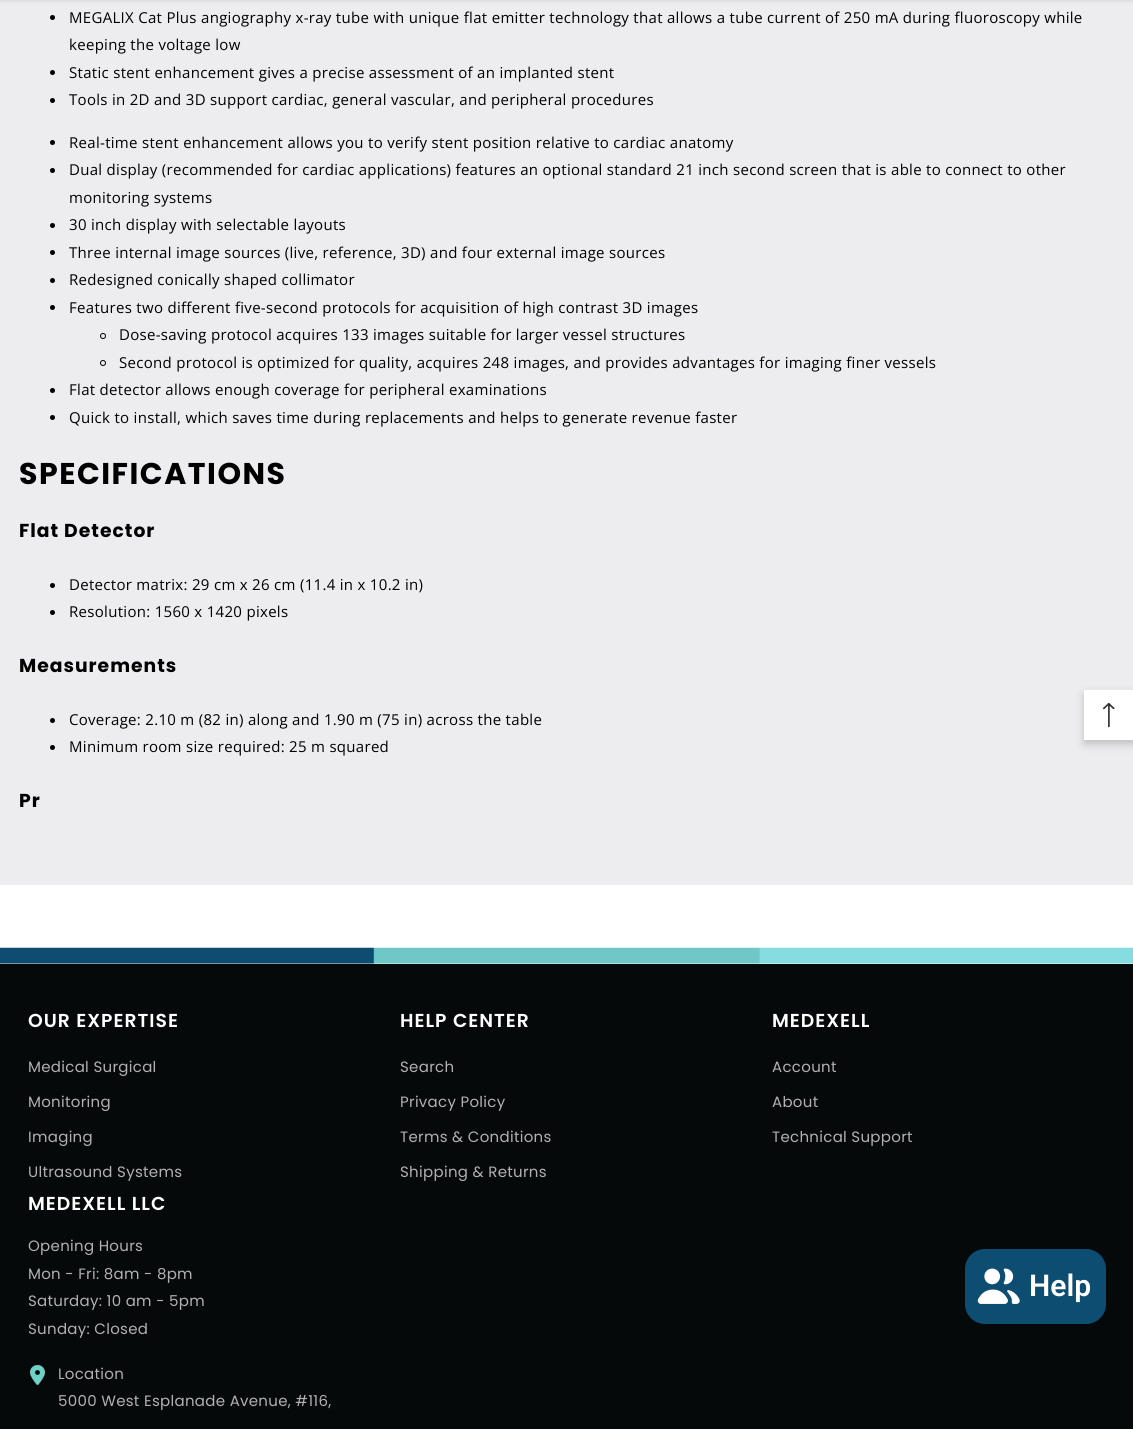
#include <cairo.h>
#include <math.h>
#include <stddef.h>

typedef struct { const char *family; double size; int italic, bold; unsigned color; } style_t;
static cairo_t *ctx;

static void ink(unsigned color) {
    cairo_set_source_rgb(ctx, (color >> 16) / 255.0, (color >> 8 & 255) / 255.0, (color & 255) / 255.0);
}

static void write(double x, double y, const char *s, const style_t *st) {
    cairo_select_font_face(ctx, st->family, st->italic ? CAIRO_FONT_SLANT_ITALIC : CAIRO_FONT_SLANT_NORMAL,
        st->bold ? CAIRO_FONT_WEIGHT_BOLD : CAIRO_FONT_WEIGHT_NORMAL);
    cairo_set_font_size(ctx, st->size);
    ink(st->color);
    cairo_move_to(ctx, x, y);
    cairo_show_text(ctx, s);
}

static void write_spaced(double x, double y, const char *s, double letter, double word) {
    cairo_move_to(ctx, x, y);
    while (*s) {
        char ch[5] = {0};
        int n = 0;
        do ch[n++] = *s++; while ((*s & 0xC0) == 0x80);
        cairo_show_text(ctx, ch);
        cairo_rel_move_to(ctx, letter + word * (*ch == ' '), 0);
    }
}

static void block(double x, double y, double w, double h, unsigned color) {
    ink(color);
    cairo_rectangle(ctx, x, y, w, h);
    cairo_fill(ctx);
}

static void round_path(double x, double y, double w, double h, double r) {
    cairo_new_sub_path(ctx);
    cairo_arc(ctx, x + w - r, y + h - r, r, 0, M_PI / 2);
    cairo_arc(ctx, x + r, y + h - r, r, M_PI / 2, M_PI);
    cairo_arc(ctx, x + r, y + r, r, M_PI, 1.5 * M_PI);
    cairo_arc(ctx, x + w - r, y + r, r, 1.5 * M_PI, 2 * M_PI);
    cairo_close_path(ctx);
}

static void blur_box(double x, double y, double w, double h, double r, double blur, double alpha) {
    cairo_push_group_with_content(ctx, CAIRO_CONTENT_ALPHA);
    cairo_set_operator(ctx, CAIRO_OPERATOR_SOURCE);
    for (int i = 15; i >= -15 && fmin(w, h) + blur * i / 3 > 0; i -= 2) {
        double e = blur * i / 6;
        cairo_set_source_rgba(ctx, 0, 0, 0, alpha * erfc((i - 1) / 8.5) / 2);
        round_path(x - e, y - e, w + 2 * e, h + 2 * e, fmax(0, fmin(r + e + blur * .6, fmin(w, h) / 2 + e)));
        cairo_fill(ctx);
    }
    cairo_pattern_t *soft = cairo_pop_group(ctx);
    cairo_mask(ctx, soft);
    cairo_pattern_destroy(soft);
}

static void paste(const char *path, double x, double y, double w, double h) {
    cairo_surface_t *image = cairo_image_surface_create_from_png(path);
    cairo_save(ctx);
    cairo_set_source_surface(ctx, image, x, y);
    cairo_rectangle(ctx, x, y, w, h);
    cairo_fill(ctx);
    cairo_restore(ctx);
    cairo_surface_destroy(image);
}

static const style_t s1 = {"Roboto SemiBold", 30, 0, 0, 0xffffff};

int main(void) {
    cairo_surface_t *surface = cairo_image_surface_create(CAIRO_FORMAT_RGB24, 1133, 1429);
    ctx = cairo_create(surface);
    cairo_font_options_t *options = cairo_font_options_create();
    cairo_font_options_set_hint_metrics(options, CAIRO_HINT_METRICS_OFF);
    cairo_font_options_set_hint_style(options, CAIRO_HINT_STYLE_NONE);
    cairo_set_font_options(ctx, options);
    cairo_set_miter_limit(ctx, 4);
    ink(0xffffff);
    cairo_paint(ctx);
    block(0, 0, 1133, 885, 0xededf0);
    ink(0x000000);
    blur_box(0, -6, 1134, 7, 0, 2, 0.1);
    ink(0x000000);
    cairo_arc(ctx, 52.5, 17.5, 2.5, 0, 2 * M_PI);
    cairo_fill(ctx);
    cairo_select_font_face(ctx, "Open Sans", CAIRO_FONT_SLANT_NORMAL, CAIRO_FONT_WEIGHT_NORMAL);
    cairo_set_font_size(ctx, 15);
    write_spaced(69, 23, "MEGALIX Cat Plus angiography x-ray tube with unique flat emitter technology that allows a tube current of 250 mA during fluoroscopy while", 0.3, 0);
    write_spaced(69, 50, "keeping the voltage low", 0.3, 0);
    cairo_new_path(ctx);
    cairo_arc(ctx, 52.5, 72.5, 2.5, 0, 2 * M_PI);
    cairo_fill(ctx);
    write_spaced(69, 78, "Static stent enhancement gives a precise assessment of an implanted stent", 0.3, 0);
    cairo_new_path(ctx);
    cairo_arc(ctx, 52.5, 100.5, 2.5, 0, 2 * M_PI);
    cairo_fill(ctx);
    write_spaced(69, 105, "Tools in 2D and 3D support cardiac, general vascular, and peripheral procedures", 0.3, 0);
    cairo_new_path(ctx);
    cairo_arc(ctx, 52.5, 142.5, 2.5, 0, 2 * M_PI);
    cairo_fill(ctx);
    write_spaced(69, 148, "Real-time stent enhancement allows you to verify stent position relative to cardiac anatomy", 0.3, 0);
    cairo_new_path(ctx);
    cairo_arc(ctx, 52.5, 170.5, 2.5, 0, 2 * M_PI);
    cairo_fill(ctx);
    write_spaced(69, 175, "Dual display (recommended for cardiac applications) features an optional standard 21 inch second screen that is able to connect to other", 0.3, 0);
    write_spaced(69, 203, "monitoring systems", 0.3, 0);
    cairo_new_path(ctx);
    cairo_arc(ctx, 52.5, 225.5, 2.5, 0, 2 * M_PI);
    cairo_fill(ctx);
    write_spaced(69, 230, "30 inch display with selectable layouts", 0.3, 0);
    cairo_new_path(ctx);
    cairo_arc(ctx, 52.5, 252.5, 2.5, 0, 2 * M_PI);
    cairo_fill(ctx);
    write_spaced(69, 258, "Three internal image sources (live, reference, 3D) and four external image sources", 0.3, 0);
    cairo_new_path(ctx);
    cairo_arc(ctx, 52.5, 280.5, 2.5, 0, 2 * M_PI);
    cairo_fill(ctx);
    write_spaced(69, 285, "Redesigned conically shaped collimator", 0.3, 0);
    cairo_new_path(ctx);
    cairo_arc(ctx, 52.5, 307.5, 2.5, 0, 2 * M_PI);
    cairo_fill(ctx);
    write_spaced(69, 313, "Features two different five-second protocols for acquisition of high contrast 3D images", 0.3, 0);
    cairo_new_path(ctx);
    cairo_arc(ctx, 103, 336, 2.5, 0, 2 * M_PI);
    cairo_set_line_width(ctx, 1);
    cairo_stroke(ctx);
    write_spaced(119, 340, "Dose-saving protocol acquires 133 images suitable for larger vessel structures", 0.3, 0);
    cairo_new_path(ctx);
    cairo_arc(ctx, 103, 363, 2.5, 0, 2 * M_PI);
    cairo_stroke(ctx);
    write_spaced(119, 368, "Second protocol is optimized for quality, acquires 248 images, and provides advantages for imaging finer vessels", 0.3, 0);
    cairo_new_path(ctx);
    cairo_arc(ctx, 52.5, 390.5, 2.5, 0, 2 * M_PI);
    cairo_fill(ctx);
    write_spaced(69, 395, "Flat detector allows enough coverage for peripheral examinations", 0.3, 0);
    cairo_new_path(ctx);
    cairo_arc(ctx, 52.5, 417.5, 2.5, 0, 2 * M_PI);
    cairo_fill(ctx);
    write_spaced(69, 423, "Quick to install, which saves time during replacements and helps to generate revenue faster", 0.3, 0);
    cairo_select_font_face(ctx, "Poppins", CAIRO_FONT_SLANT_NORMAL, CAIRO_FONT_WEIGHT_BOLD);
    cairo_set_font_size(ctx, 30);
    write_spaced(19, 484, "SPECIFICATIONS", 1.5, 0);
    cairo_set_font_size(ctx, 18.75);
    write_spaced(19, 537, "Flat Detector", 1, 0);
    cairo_new_path(ctx);
    cairo_arc(ctx, 52.5, 585.5, 2.5, 0, 2 * M_PI);
    cairo_fill(ctx);
    cairo_select_font_face(ctx, "Open Sans", CAIRO_FONT_SLANT_NORMAL, CAIRO_FONT_WEIGHT_NORMAL);
    cairo_set_font_size(ctx, 15);
    write_spaced(69, 590, "Detector matrix: 29 cm x 26 cm (11.4 in x 10.2 in)", 0.3, 0);
    cairo_new_path(ctx);
    cairo_arc(ctx, 52.5, 612.5, 2.5, 0, 2 * M_PI);
    cairo_fill(ctx);
    write_spaced(69, 617, "Resolution: 1560 x 1420 pixels", 0.3, 0);
    cairo_select_font_face(ctx, "Poppins", CAIRO_FONT_SLANT_NORMAL, CAIRO_FONT_WEIGHT_BOLD);
    cairo_set_font_size(ctx, 18.75);
    write_spaced(19, 672, "Measurements", 1, 0);
    cairo_new_path(ctx);
    cairo_arc(ctx, 52.5, 720.5, 2.5, 0, 2 * M_PI);
    cairo_fill(ctx);
    cairo_select_font_face(ctx, "Open Sans", CAIRO_FONT_SLANT_NORMAL, CAIRO_FONT_WEIGHT_NORMAL);
    cairo_set_font_size(ctx, 15);
    write_spaced(69, 725, "Coverage: 2.10 m (82 in) along and 1.90 m (75 in) across the table", 0.3, 0);
    cairo_new_path(ctx);
    cairo_arc(ctx, 52.5, 747.5, 2.5, 0, 2 * M_PI);
    cairo_fill(ctx);
    write_spaced(69, 752, "Minimum room size required: 25 m squared", 0.3, 0);
    cairo_select_font_face(ctx, "Poppins", CAIRO_FONT_SLANT_NORMAL, CAIRO_FONT_WEIGHT_BOLD);
    cairo_set_font_size(ctx, 18.75);
    write_spaced(19, 807, "Pr", 1, 0);
    paste("pic1.png", 0, 947, 1133, 17);
    block(0, 964, 1133, 465, 0x060909);
    cairo_select_font_face(ctx, "Poppins SemiBold", CAIRO_FONT_SLANT_NORMAL, CAIRO_FONT_WEIGHT_NORMAL);
    ink(0xffffff);
    write_spaced(28, 1027, "OUR EXPERTISE", 1, 0);
    cairo_select_font_face(ctx, "Poppins", CAIRO_FONT_SLANT_NORMAL, CAIRO_FONT_WEIGHT_NORMAL);
    cairo_set_font_size(ctx, 15);
    ink(0xb1b1b3);
    write_spaced(28, 1072, "Medical Surgical", 0.3, 0);
    write_spaced(28, 1107, "Monitoring", 0.3, 0);
    write_spaced(28, 1142, "Imaging", 0.3, 0);
    write_spaced(28, 1177, "Ultrasound Systems", 0.3, 0);
    cairo_select_font_face(ctx, "Poppins SemiBold", CAIRO_FONT_SLANT_NORMAL, CAIRO_FONT_WEIGHT_NORMAL);
    cairo_set_font_size(ctx, 18.75);
    ink(0xffffff);
    write_spaced(400, 1027, "HELP CENTER", 1, 0);
    cairo_select_font_face(ctx, "Poppins", CAIRO_FONT_SLANT_NORMAL, CAIRO_FONT_WEIGHT_NORMAL);
    cairo_set_font_size(ctx, 15);
    ink(0xb1b1b3);
    write_spaced(400, 1072, "Search", 0.3, 0);
    write_spaced(400, 1107, "Privacy Policy", 0.3, 0);
    write_spaced(400, 1142, "Terms & Conditions", 0.3, 0);
    write_spaced(400, 1177, "Shipping & Returns", 0.3, 0);
    cairo_select_font_face(ctx, "Poppins SemiBold", CAIRO_FONT_SLANT_NORMAL, CAIRO_FONT_WEIGHT_NORMAL);
    cairo_set_font_size(ctx, 18.75);
    ink(0xffffff);
    write_spaced(772, 1027, "MEDEXELL", 1, 0);
    cairo_select_font_face(ctx, "Poppins", CAIRO_FONT_SLANT_NORMAL, CAIRO_FONT_WEIGHT_NORMAL);
    cairo_set_font_size(ctx, 15);
    ink(0xb1b1b3);
    write_spaced(772, 1072, "Account", 0.3, 0);
    write_spaced(772, 1107, "About", 0.3, 0);
    write_spaced(772, 1142, "Technical Support", 0.3, 0);
    cairo_select_font_face(ctx, "Poppins SemiBold", CAIRO_FONT_SLANT_NORMAL, CAIRO_FONT_WEIGHT_NORMAL);
    cairo_set_font_size(ctx, 18.75);
    ink(0xffffff);
    write_spaced(28, 1210, "MEDEXELL LLC", 1, 0);
    cairo_select_font_face(ctx, "Poppins", CAIRO_FONT_SLANT_NORMAL, CAIRO_FONT_WEIGHT_NORMAL);
    cairo_set_font_size(ctx, 15);
    ink(0xb1b1b3);
    write_spaced(28, 1251, "Opening Hours", 0.3, 0);
    write_spaced(28, 1279, "Mon - Fri: 8am - 8pm", 0.3, 0);
    write_spaced(28, 1306, "Saturday: 10 am - 5pm", 0.3, 0);
    write_spaced(28, 1334, "Sunday: Closed", 0.3, 0);
    paste("pic2.png", 29, 1365, 16, 20);
    write_spaced(58, 1379, "Location", 0.3, 0);
    write_spaced(58, 1406, "5000 West Esplanade Avenue, #116,", 0.3, 0);
    ink(0x000000);
    blur_box(1084, 694, 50, 50, 0, 4.5, 0.2);
    block(1084, 690, 49, 50, 0xffffff);
    paste("pic3.png", 1103, 703, 12, 25);
    ink(0x0d4d71);
    round_path(965, 1249, 141, 75, 20);
    cairo_fill(ctx);
    paste("pic4.png", 977, 1268, 43, 36);
    write(1029, 1296, "Help", &s1);
    cairo_surface_write_to_png(surface, "screenshot.png");
    cairo_font_options_destroy(options);
    cairo_destroy(ctx);
    cairo_surface_destroy(surface);
    return 0;
}
